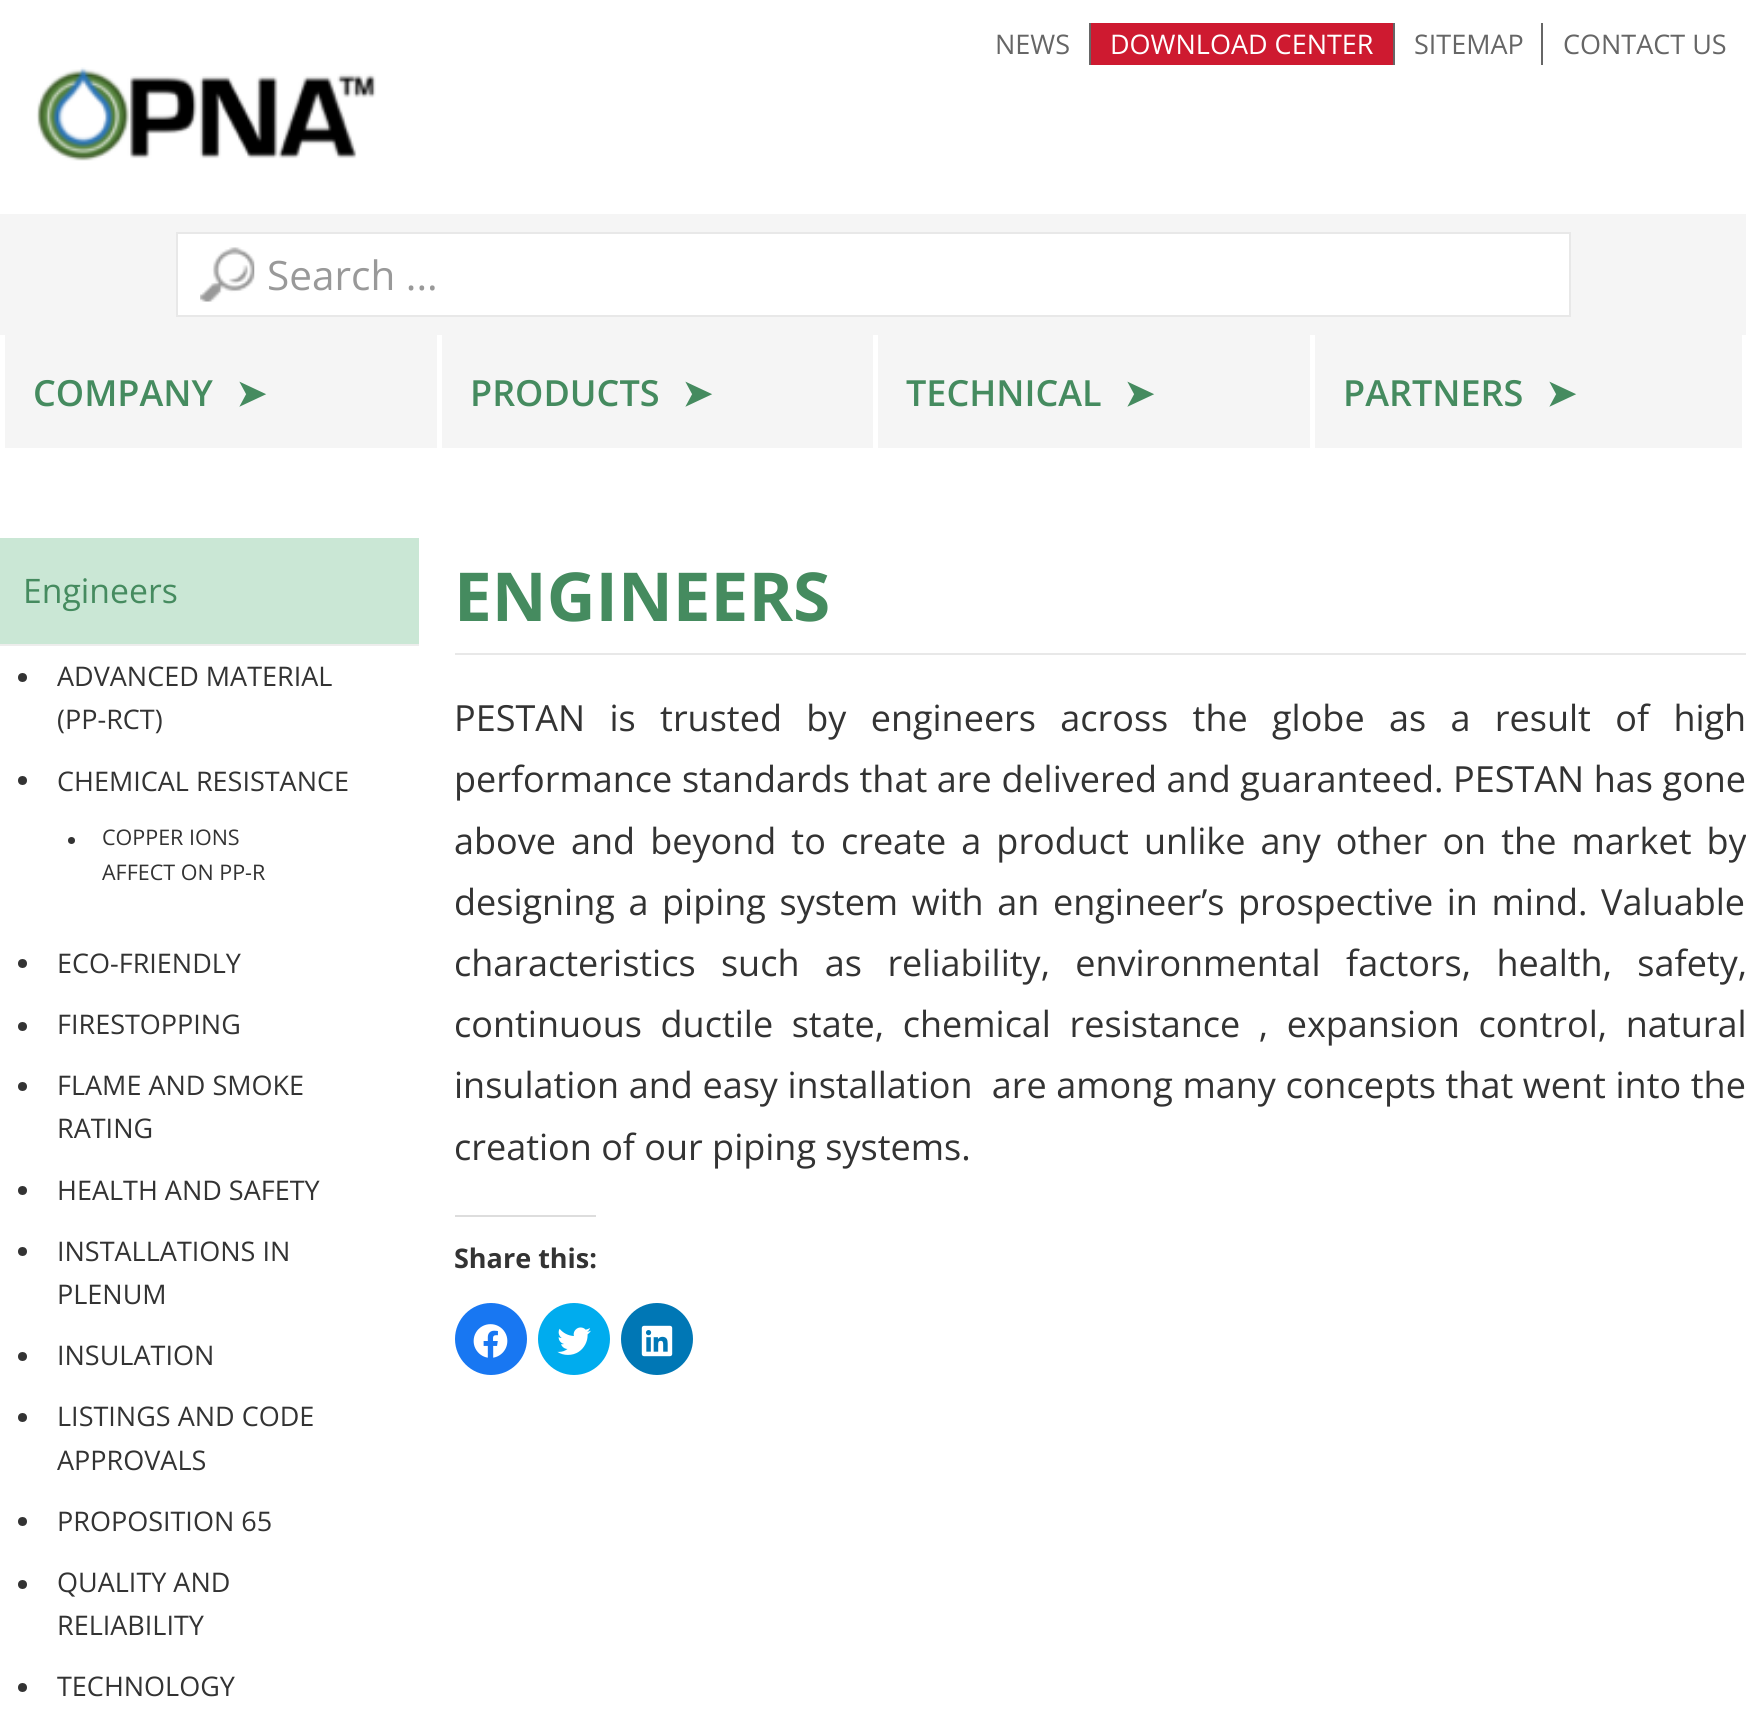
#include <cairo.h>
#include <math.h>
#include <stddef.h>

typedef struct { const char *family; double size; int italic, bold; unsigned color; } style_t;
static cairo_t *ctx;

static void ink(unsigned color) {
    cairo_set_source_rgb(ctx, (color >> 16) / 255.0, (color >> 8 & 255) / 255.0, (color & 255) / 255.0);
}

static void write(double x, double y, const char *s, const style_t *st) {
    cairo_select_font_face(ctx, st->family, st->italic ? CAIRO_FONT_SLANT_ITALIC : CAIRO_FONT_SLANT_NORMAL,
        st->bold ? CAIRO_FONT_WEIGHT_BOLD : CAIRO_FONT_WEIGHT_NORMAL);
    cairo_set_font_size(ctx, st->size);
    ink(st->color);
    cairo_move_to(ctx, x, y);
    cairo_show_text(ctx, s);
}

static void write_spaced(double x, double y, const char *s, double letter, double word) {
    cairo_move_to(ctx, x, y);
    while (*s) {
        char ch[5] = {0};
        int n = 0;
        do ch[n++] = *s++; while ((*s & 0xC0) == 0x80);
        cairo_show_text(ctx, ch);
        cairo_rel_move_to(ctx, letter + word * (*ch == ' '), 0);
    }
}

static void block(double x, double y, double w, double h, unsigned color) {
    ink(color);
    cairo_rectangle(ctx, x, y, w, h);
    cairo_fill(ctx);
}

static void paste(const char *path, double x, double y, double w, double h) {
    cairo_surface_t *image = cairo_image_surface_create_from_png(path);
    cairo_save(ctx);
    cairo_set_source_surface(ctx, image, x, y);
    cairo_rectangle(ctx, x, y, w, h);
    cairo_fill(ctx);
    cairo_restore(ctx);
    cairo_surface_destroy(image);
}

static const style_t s1 = {"Open Sans", 27, 0, 0, 0x666666};
static const style_t s2 = {"Open Sans", 27, 0, 0, 0xffffff};
static const style_t s3 = {"Open Sans", 40.5, 0, 0, 0x999999};
static const style_t s4 = {"Open Sans SemiBold", 36, 0, 0, 0x458b5f};
static const style_t s5 = {"DejaVu Sans", 36, 0, 1, 0x458b5f};
static const style_t s6 = {"Open Sans", 33.75, 0, 0, 0x458b5f};
static const style_t s7 = {"Open Sans", 27, 0, 0, 0x333333};
static const style_t s8 = {"Open Sans", 21.5, 0, 0, 0x333333};
static const style_t s9 = {"Open Sans", 67.5, 0, 1, 0x458b5f};
static const style_t s10 = {"Open Sans", 36, 0, 0, 0x333333};
static const style_t s11 = {"Open Sans", 27, 0, 1, 0x333333};

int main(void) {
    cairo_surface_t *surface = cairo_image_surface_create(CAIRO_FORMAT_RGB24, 1746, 1716);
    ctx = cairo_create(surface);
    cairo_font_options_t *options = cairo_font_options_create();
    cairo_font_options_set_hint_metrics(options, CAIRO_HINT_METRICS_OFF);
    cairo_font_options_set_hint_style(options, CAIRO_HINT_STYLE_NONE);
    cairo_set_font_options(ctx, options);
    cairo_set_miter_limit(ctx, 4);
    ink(0xffffff);
    cairo_paint(ctx);
    block(1089, 23, 2, 42, 0x666666);
    write(995, 54, "NEWS", &s1);
    block(1091, 23, 302, 42, 0xce1a30);
    block(1393, 23, 2, 42, 0x666666);
    write(1110, 54, "DOWNLOAD CENTER", &s2);
    block(1541, 23, 2, 42, 0x666666);
    write(1414, 54, "SITEMAP", &s1);
    write(1563, 54, "CONTACT US", &s1);
    paste("pic1.png", 36, 67, 340, 94);
    block(0, 214, 1746, 121, 0xf5f5f5);
    block(178, 234, 1391, 81, 0xffffff);
    paste("pic2.png", 200, 247, 55, 55);
    cairo_rectangle(ctx, 177, 233, 1393, 83);
    ink(0xe8e8e8);
    cairo_stroke(ctx);
    write(267, 290, "Search ...", &s3);
    block(5, 335, 1737, 113, 0xf5f5f5);
    write(33, 406, "COMPANY", &s4);
    write(236, 406, "➤", &s5);
    block(437, 335, 5, 113, 0xffffff);
    write(470, 406, "PRODUCTS", &s4);
    write(682, 406, "➤", &s5);
    block(873, 335, 5, 113, 0xffffff);
    write(906, 406, "TECHNICAL", &s4);
    write(1124, 406, "➤", &s5);
    block(1310, 335, 5, 113, 0xffffff);
    write(1343, 406, "PARTNERS", &s4);
    write(1546, 406, "➤", &s5);
    block(0, 538, 419, 106, 0xcae7d5);
    block(0, 644, 419, 2, 0xededec);
    write(23, 603, "Engineers", &s6);
    ink(0x333333);
    cairo_new_path(ctx);
    cairo_arc(ctx, 22.5, 677.5, 4.5, 0, 2 * M_PI);
    cairo_fill(ctx);
    write(57, 686, "ADVANCED MATERIAL", &s7);
    write(57, 729, "(PP-RCT)", &s7);
    cairo_new_path(ctx);
    cairo_arc(ctx, 22.5, 780.5, 4.5, 0, 2 * M_PI);
    cairo_fill(ctx);
    write(57, 791, "CHEMICAL RESISTANCE", &s7);
    cairo_new_path(ctx);
    cairo_arc(ctx, 71.5, 840.5, 3.5, 0, 2 * M_PI);
    cairo_fill(ctx);
    write(102, 845, "COPPER IONS", &s8);
    write(102, 880, "AFFECT ON PP-R", &s8);
    cairo_new_path(ctx);
    cairo_arc(ctx, 22.5, 963.5, 4.5, 0, 2 * M_PI);
    cairo_fill(ctx);
    write(57, 973, "ECO-FRIENDLY", &s7);
    cairo_new_path(ctx);
    cairo_arc(ctx, 22.5, 1026.5, 4.5, 0, 2 * M_PI);
    cairo_fill(ctx);
    write(57, 1034, "FIRESTOPPING", &s7);
    cairo_new_path(ctx);
    cairo_arc(ctx, 22.5, 1086.5, 4.5, 0, 2 * M_PI);
    cairo_fill(ctx);
    write(57, 1095, "FLAME AND SMOKE", &s7);
    write(57, 1138, "RATING", &s7);
    cairo_new_path(ctx);
    cairo_arc(ctx, 22.5, 1190.5, 4.5, 0, 2 * M_PI);
    cairo_fill(ctx);
    write(57, 1200, "HEALTH AND SAFETY", &s7);
    cairo_new_path(ctx);
    cairo_arc(ctx, 22.5, 1251.5, 4.5, 0, 2 * M_PI);
    cairo_fill(ctx);
    write(57, 1261, "INSTALLATIONS IN", &s7);
    write(57, 1304, "PLENUM", &s7);
    cairo_new_path(ctx);
    cairo_arc(ctx, 22.5, 1356.5, 4.5, 0, 2 * M_PI);
    cairo_fill(ctx);
    write(57, 1365, "INSULATION", &s7);
    cairo_new_path(ctx);
    cairo_arc(ctx, 22.5, 1417.5, 4.5, 0, 2 * M_PI);
    cairo_fill(ctx);
    write(57, 1426, "LISTINGS AND CODE", &s7);
    write(57, 1470, "APPROVALS", &s7);
    cairo_new_path(ctx);
    cairo_arc(ctx, 22.5, 1521.5, 4.5, 0, 2 * M_PI);
    cairo_fill(ctx);
    write(57, 1531, "PROPOSITION 65", &s7);
    cairo_new_path(ctx);
    cairo_arc(ctx, 22.5, 1584.5, 4.5, 0, 2 * M_PI);
    cairo_fill(ctx);
    write(57, 1592, "QUALITY AND", &s7);
    write(57, 1635, "RELIABILITY", &s7);
    cairo_new_path(ctx);
    cairo_arc(ctx, 22.5, 1687.5, 4.5, 0, 2 * M_PI);
    cairo_fill(ctx);
    write(57, 1696, "TECHNOLOGY", &s7);
    block(455, 653, 1291, 2, 0xe8e8e8);
    write(454, 621, "ENGINEERS", &s9);
    cairo_select_font_face(ctx, "Open Sans", CAIRO_FONT_SLANT_NORMAL, CAIRO_FONT_WEIGHT_NORMAL);
    cairo_set_font_size(ctx, 36);
    ink(0x333333);
    write_spaced(454, 731, "PESTAN is trusted by engineers across the globe as a result of high", 0, 15);
    write_spaced(454, 792, "performance standards that are delivered and guaranteed. PESTAN has gone", 0, 0.25);
    write_spaced(454, 854, "above and beyond to create a product unlike any other on the market by", 0, 5.75);
    write_spaced(454, 915, "designing a piping system with an engineer’s prospective in mind. Valuable", 0, 4.25);
    write_spaced(454, 976, "characteristics such as reliability, environmental factors, health, safety,", 0, 16);
    write_spaced(454, 1037, "continuous ductile state, chemical resistance , expansion control, natural", 0, 9.25);
    write_spaced(454, 1098, "insulation and easy installation  are among many concepts that went into the", 0, 0.25);
    write(454, 1160, "creation of our piping systems.", &s10);
    block(455, 1215, 141, 2, 0xdddddd);
    write(454, 1268, "Share this:", &s11);
    ink(0x1877f2);
    cairo_new_path(ctx);
    cairo_arc(ctx, 491, 1339, 36, 0, 2 * M_PI);
    cairo_fill(ctx);
    paste("pic3.png", 473, 1324, 35, 34);
    ink(0x00acee);
    cairo_arc(ctx, 574, 1339, 36, 0, 2 * M_PI);
    cairo_fill(ctx);
    paste("pic4.png", 557, 1327, 34, 28);
    ink(0x0077b5);
    cairo_arc(ctx, 657, 1339, 36, 0, 2 * M_PI);
    cairo_fill(ctx);
    paste("pic5.png", 641, 1325, 32, 32);
    cairo_surface_write_to_png(surface, "screenshot.png");
    cairo_font_options_destroy(options);
    cairo_destroy(ctx);
    cairo_surface_destroy(surface);
    return 0;
}
